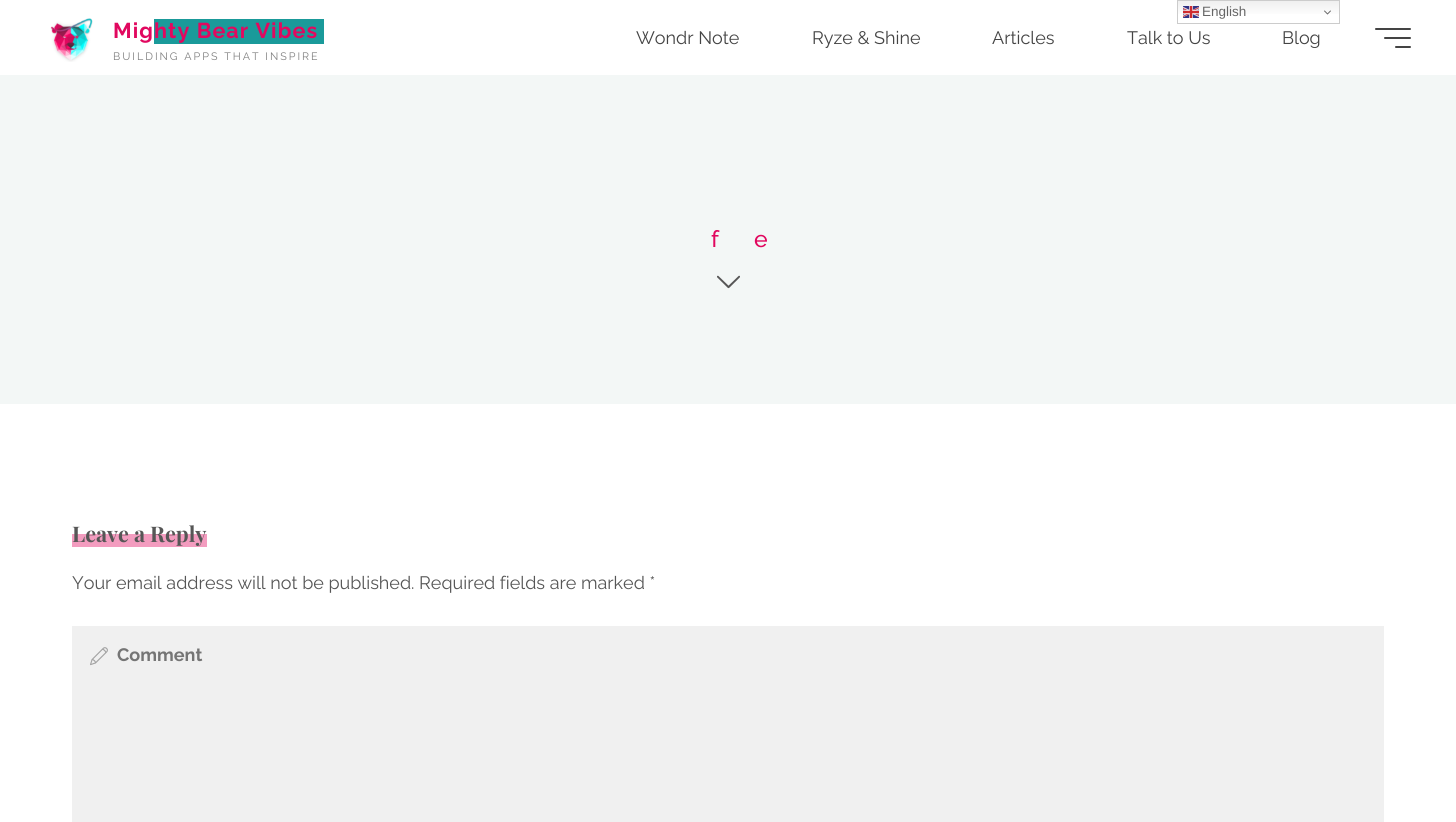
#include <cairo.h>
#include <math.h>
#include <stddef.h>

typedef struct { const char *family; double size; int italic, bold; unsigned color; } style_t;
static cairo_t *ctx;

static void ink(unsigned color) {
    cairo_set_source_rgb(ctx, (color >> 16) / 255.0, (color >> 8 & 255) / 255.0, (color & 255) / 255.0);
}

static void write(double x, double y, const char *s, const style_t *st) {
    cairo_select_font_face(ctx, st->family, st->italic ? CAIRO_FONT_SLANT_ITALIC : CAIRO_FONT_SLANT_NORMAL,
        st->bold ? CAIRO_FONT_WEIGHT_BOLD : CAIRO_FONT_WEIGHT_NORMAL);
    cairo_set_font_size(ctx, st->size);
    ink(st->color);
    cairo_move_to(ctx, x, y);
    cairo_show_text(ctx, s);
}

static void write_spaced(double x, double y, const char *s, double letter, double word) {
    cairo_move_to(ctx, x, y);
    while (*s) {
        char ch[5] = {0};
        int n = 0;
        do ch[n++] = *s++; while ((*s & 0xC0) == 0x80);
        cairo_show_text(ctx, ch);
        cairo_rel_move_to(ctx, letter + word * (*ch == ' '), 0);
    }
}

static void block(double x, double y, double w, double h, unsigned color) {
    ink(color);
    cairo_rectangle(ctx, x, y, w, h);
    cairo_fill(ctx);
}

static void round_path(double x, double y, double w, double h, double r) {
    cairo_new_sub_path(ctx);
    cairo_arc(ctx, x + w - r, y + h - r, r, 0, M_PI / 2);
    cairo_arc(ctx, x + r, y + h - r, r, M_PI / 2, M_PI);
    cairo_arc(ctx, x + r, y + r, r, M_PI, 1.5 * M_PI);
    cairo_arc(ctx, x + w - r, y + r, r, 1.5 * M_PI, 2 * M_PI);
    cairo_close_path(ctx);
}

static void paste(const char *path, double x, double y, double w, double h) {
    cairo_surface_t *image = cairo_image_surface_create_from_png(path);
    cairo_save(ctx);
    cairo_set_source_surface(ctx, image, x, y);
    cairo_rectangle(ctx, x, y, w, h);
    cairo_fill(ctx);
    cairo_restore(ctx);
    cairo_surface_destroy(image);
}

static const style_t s1 = {"Liberation Sans", 13.5, 0, 0, 0x666666};
static const style_t s2 = {"Raleway", 18, 0, 0, 0x444444};
static const style_t s3 = {"Raleway Medium", 23, 0, 0, 0xe1085f};
static const style_t s4 = {"Playfair Display", 21.5, 0, 1, 0x565656};
static const style_t s5 = {"Raleway", 18, 0, 0, 0x565656};
static const style_t s6 = {"Raleway", 18, 0, 1, 0x757575};

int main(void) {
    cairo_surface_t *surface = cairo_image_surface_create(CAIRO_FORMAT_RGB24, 1456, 822);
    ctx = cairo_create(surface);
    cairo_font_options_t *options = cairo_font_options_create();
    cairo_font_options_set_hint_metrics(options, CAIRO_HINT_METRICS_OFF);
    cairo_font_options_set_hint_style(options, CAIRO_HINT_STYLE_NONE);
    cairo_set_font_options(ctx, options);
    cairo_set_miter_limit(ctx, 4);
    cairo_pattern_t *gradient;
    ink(0xf3f7f6);
    cairo_paint(ctx);
    block(0, 0, 1456, 75, 0xffffff);
    gradient = cairo_pattern_create_linear(1259, 0, 1259, 24);
    cairo_pattern_add_color_stop_rgba(gradient, 0, 0.937, 0.937, 0.937, 1);
    cairo_pattern_add_color_stop_rgba(gradient, 0.7, 1, 1, 1, 1);
    cairo_set_source(ctx, gradient);
    cairo_pattern_destroy(gradient);
    cairo_rectangle(ctx, 1178, 1, 161, 13);
    cairo_fill(ctx);
    cairo_rectangle(ctx, 1177.5, 0.5, 162, 23);
    ink(0xcccccc);
    cairo_set_line_width(ctx, 1);
    cairo_stroke(ctx);
    paste("pic1.png", 1183, 6, 16, 12);
    write(1202, 16, "English", &s1);
    paste("pic2.png", 1324, 10, 7, 5);
    paste("pic3.png", 50, 18, 43, 44);
    block(154, 19, 170, 25, 0x1a9a9a);
    cairo_select_font_face(ctx, "Raleway", CAIRO_FONT_SLANT_NORMAL, CAIRO_FONT_WEIGHT_BOLD);
    cairo_set_font_size(ctx, 21.5);
    ink(0xe1085f);
    write_spaced(113, 38, "Mighty Bear Vibes", 1.1, 0);
    cairo_select_font_face(ctx, "Raleway", CAIRO_FONT_SLANT_NORMAL, CAIRO_FONT_WEIGHT_NORMAL);
    cairo_set_font_size(ctx, 10.75);
    ink(0x808080);
    write_spaced(113, 60, "BUILDING APPS THAT INSPIRE", 2, 0);
    write(636, 44, "Wondr Note", &s2);
    write(812, 44, "Ryze & Shine", &s2);
    write(992, 44, "Articles", &s2);
    write(1127, 44, "Talk to Us", &s2);
    write(1282, 44, "Blog", &s2);
    round_path(1375, 28, 36, 2, 1);
    cairo_fill(ctx);
    round_path(1384, 37, 27, 2, 1);
    cairo_fill(ctx);
    round_path(1395, 46, 16, 2, 1);
    cairo_fill(ctx);
    write(711, 247, "f", &s3);
    write(754, 247, "e", &s3);
    paste("pic4.png", 717, 275, 23, 14);
    block(0, 404, 1456, 418, 0xffffff);
    block(72, 534, 135, 13, 0xf39cbf);
    write(72, 542, "Leave a Reply", &s4);
    write(72, 589, "Your email address will not be published. Required fields are marked *", &s5);
    block(72, 626, 1312, 196, 0xf0f0f0);
    paste("pic5.png", 90, 647, 18, 19);
    write(117, 661, "Comment", &s6);
    cairo_surface_write_to_png(surface, "screenshot.png");
    cairo_font_options_destroy(options);
    cairo_destroy(ctx);
    cairo_surface_destroy(surface);
    return 0;
}
